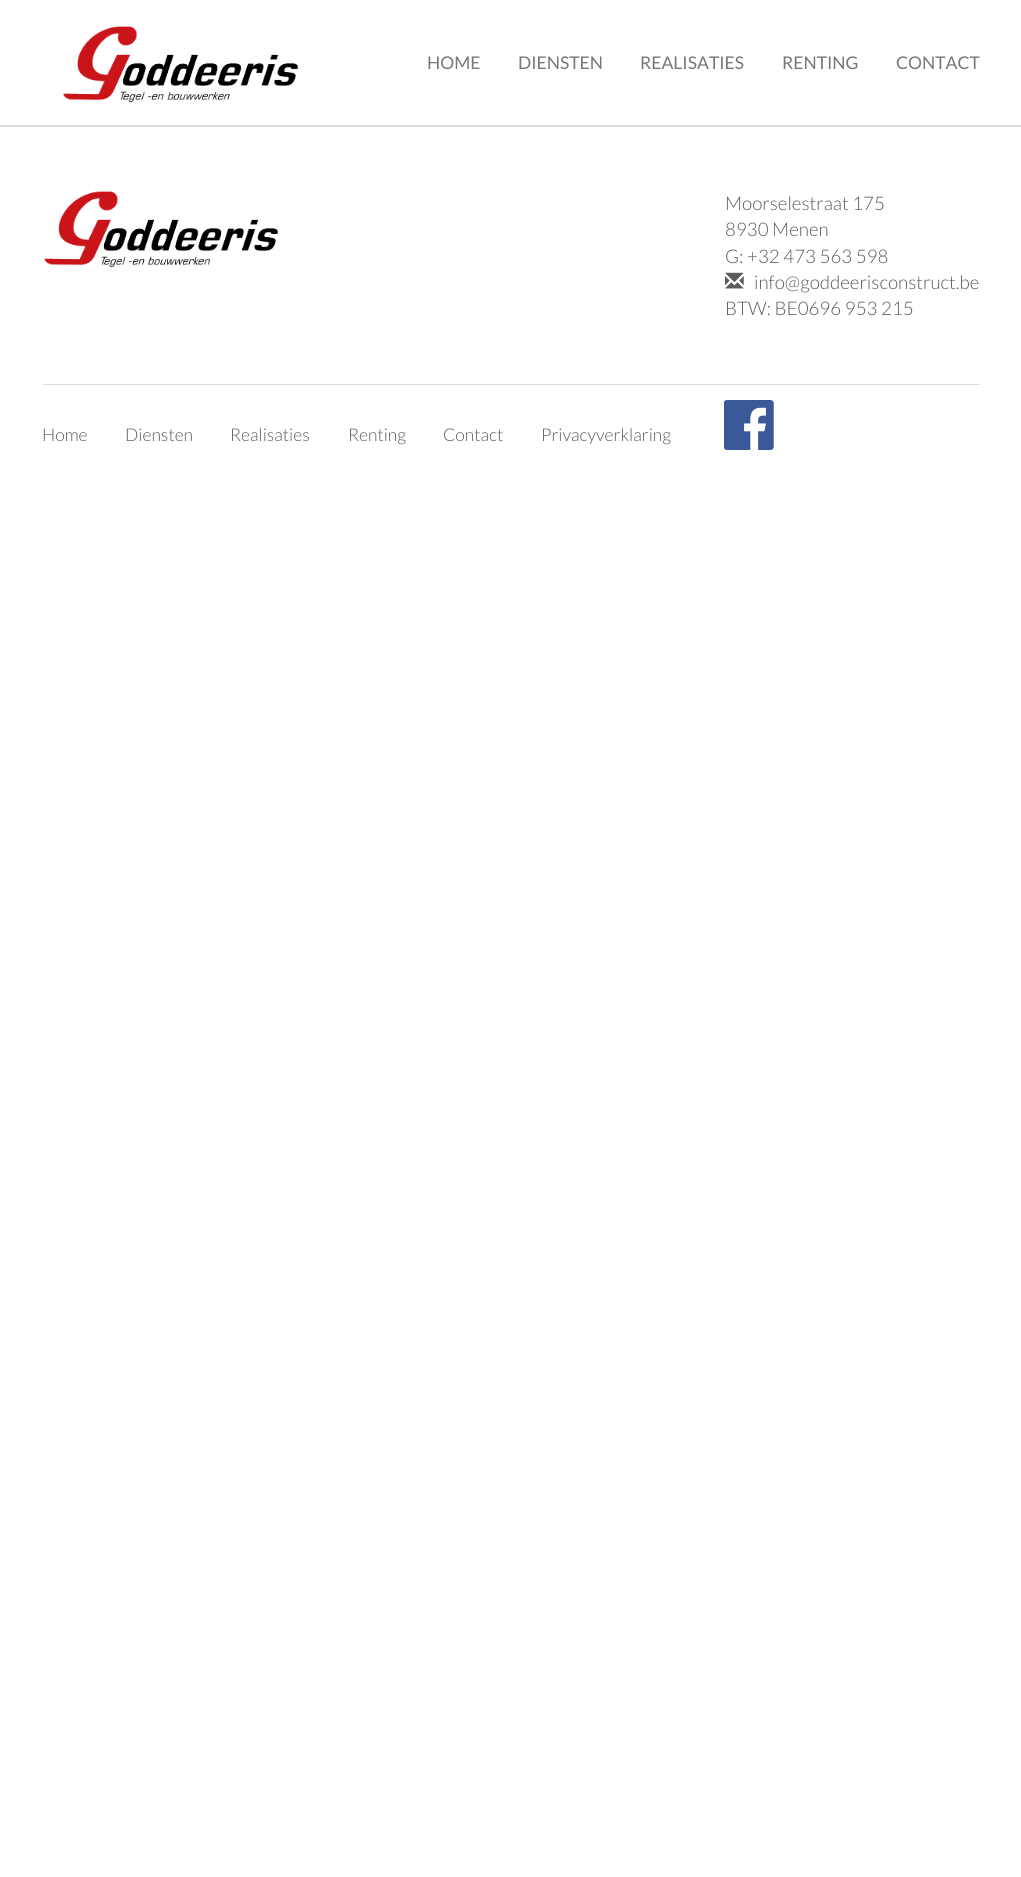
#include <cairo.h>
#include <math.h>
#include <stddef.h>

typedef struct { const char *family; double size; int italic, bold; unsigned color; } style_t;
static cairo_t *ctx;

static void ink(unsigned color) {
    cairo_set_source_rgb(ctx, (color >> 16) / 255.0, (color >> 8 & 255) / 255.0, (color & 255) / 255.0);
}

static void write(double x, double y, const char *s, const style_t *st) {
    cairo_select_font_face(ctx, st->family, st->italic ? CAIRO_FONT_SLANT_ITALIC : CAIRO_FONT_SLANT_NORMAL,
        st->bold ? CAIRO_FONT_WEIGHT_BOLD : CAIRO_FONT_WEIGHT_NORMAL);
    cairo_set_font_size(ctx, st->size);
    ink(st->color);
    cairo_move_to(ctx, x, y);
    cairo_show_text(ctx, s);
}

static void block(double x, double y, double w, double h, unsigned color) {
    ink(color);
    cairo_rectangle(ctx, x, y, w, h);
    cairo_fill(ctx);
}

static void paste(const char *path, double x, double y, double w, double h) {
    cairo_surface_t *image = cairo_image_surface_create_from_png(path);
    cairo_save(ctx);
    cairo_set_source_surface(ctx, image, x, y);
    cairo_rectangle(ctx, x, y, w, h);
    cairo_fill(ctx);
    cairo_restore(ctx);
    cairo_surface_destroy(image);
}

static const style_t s1 = {"Lato", 17.5, 0, 0, 0x777777};
static const style_t s2 = {"Lato Light", 18.75, 0, 0, 0x5b5b5c};
static const style_t s3 = {"Lato Light", 17.5, 0, 0, 0x5b5b5c};

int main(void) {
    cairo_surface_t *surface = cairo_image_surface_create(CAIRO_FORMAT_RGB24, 1021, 1877);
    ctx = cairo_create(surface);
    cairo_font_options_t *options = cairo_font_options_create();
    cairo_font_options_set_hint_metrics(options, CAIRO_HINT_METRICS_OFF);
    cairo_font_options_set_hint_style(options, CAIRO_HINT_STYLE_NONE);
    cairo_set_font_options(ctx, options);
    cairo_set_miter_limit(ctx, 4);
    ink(0xffffff);
    cairo_paint(ctx);
    paste("pic1.png", 63, 26, 235, 76);
    write(427, 69, "HOME", &s1);
    write(518, 69, "DIENSTEN", &s1);
    write(640, 69, "REALISATIES", &s1);
    write(782, 69, "RENTING", &s1);
    write(896, 69, "CONTACT", &s1);
    block(0, 125, 1021, 2, 0xdddddd);
    block(43, 384, 937, 1, 0xdddddd);
    paste("pic2.png", 44, 191, 234, 76);
    write(725, 210, "Moorselestraat 175", &s2);
    write(725, 236, "8930 Menen", &s2);
    write(725, 263, "G: +32 473 563 598", &s2);
    paste("pic3.png", 725, 272, 19, 17);
    write(754, 289, "info@goddeerisconstruct.be", &s2);
    write(725, 315, "BTW: BE0696 953 215", &s2);
    write(42, 441, "Home", &s3);
    write(125, 441, "Diensten", &s3);
    write(230, 441, "Realisaties", &s3);
    write(348, 441, "Renting", &s3);
    write(443, 441, "Contact", &s3);
    write(541, 441, "Privacyverklaring", &s3);
    paste("pic4.png", 724, 400, 50, 50);
    cairo_surface_write_to_png(surface, "screenshot.png");
    cairo_font_options_destroy(options);
    cairo_destroy(ctx);
    cairo_surface_destroy(surface);
    return 0;
}
